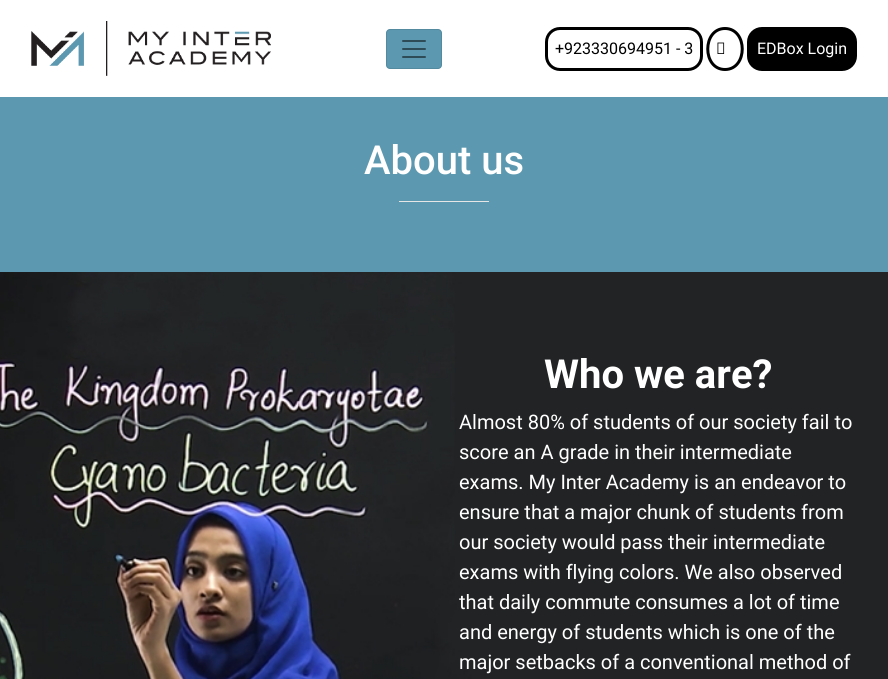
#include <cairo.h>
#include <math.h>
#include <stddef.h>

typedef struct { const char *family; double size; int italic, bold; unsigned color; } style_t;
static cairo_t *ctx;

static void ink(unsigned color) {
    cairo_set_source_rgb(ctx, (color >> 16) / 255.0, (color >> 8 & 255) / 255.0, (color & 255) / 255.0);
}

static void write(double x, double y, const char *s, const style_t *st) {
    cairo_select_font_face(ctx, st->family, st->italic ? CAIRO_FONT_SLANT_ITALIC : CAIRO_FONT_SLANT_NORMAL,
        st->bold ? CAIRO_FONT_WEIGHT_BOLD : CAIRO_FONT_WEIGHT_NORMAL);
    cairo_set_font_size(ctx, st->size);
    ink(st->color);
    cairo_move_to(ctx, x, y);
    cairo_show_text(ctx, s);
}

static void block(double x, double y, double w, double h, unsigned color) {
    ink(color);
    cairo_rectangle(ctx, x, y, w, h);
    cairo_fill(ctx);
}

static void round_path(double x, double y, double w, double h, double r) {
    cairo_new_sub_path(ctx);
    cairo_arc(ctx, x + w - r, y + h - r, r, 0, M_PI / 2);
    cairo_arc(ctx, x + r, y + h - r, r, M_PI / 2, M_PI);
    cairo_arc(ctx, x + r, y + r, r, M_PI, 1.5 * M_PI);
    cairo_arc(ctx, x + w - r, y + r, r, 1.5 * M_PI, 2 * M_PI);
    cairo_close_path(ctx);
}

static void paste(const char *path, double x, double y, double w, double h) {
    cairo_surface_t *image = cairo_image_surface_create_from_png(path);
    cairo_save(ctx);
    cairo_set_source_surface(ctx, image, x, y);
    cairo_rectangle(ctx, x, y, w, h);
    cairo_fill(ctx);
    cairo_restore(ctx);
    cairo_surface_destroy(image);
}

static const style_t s1 = {"Roboto", 16, 0, 0, 0x000000};
static const style_t s2 = {"Roboto", 16, 0, 0, 0xffffff};
static const style_t s3 = {"Roboto Medium", 40, 0, 0, 0xffffff};
static const style_t s4 = {"Roboto", 40, 0, 1, 0xffffff};
static const style_t s5 = {"Roboto", 20, 0, 0, 0xffffff};

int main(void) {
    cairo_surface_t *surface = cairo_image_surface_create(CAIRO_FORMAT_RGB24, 888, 679);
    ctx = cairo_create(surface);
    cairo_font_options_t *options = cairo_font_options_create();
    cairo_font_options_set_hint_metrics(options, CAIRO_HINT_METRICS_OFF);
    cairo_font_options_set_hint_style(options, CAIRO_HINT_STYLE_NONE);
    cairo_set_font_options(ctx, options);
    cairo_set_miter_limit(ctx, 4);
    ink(0xffffff);
    cairo_paint(ctx);
    paste("pic1.png", 31, 21, 240, 55);
    ink(0x5c99b0);
    round_path(386, 29, 56, 40, 4);
    cairo_fill(ctx);
    round_path(386.5, 29.5, 55, 39, 3.5);
    cairo_set_source_rgba(ctx, 0, 0, 0, 0.1);
    cairo_set_line_width(ctx, 1);
    cairo_stroke(ctx);
    paste("pic2.png", 402, 40, 24, 18);
    round_path(546.5, 28.5, 155, 41, 13.5);
    ink(0x000000);
    cairo_set_line_width(ctx, 3);
    cairo_stroke(ctx);
    write(555, 54, "+923330694951 - 3", &s1);
    cairo_new_path(ctx);
    cairo_move_to(ctx, 725, 28.5);
    cairo_curve_to(ctx, 748, 28.5, 748, 69.5, 725, 69.5);
    cairo_curve_to(ctx, 702, 69.5, 702, 28.5, 725, 28.5);
    cairo_close_path(ctx);
    cairo_stroke(ctx);
    paste("pic3.png", 717, 42, 8, 12);
    round_path(748.5, 28.5, 107, 41, 13.5);
    cairo_fill_preserve(ctx);
    cairo_stroke(ctx);
    write(757, 54, "EDBox Login", &s2);
    block(0, 97, 888, 175, 0x5c99b0);
    write(364, 174, "About us", &s3);
    block(399, 201, 90, 1, 0xe6e6e6);
    paste("pic4.png", 0, 272, 888, 407);
    write(544, 388, "Who we are?", &s4);
    write(459, 429, "Almost 80% of students of our society fail to", &s5);
    write(459, 459, "score an A grade in their intermediate", &s5);
    write(459, 489, "exams. My Inter Academy is an endeavor to", &s5);
    write(459, 519, "ensure that a major chunk of students from", &s5);
    write(459, 549, "our society would pass their intermediate", &s5);
    write(459, 579, "exams with flying colors. We also observed", &s5);
    write(459, 609, "that daily commute consumes a lot of time", &s5);
    write(459, 639, "and energy of students which is one of the", &s5);
    write(459, 669, "major setbacks of a conventional method of", &s5);
    cairo_surface_write_to_png(surface, "screenshot.png");
    cairo_font_options_destroy(options);
    cairo_destroy(ctx);
    cairo_surface_destroy(surface);
    return 0;
}
